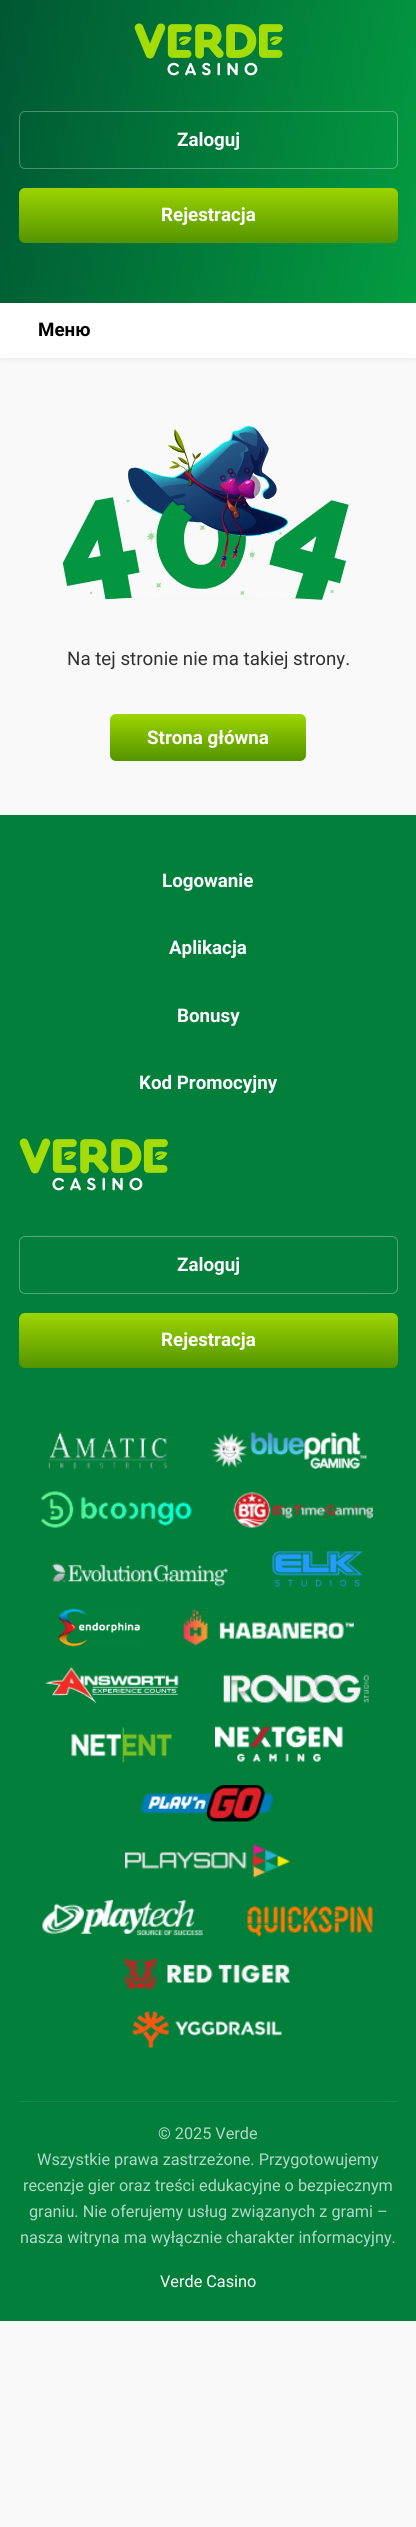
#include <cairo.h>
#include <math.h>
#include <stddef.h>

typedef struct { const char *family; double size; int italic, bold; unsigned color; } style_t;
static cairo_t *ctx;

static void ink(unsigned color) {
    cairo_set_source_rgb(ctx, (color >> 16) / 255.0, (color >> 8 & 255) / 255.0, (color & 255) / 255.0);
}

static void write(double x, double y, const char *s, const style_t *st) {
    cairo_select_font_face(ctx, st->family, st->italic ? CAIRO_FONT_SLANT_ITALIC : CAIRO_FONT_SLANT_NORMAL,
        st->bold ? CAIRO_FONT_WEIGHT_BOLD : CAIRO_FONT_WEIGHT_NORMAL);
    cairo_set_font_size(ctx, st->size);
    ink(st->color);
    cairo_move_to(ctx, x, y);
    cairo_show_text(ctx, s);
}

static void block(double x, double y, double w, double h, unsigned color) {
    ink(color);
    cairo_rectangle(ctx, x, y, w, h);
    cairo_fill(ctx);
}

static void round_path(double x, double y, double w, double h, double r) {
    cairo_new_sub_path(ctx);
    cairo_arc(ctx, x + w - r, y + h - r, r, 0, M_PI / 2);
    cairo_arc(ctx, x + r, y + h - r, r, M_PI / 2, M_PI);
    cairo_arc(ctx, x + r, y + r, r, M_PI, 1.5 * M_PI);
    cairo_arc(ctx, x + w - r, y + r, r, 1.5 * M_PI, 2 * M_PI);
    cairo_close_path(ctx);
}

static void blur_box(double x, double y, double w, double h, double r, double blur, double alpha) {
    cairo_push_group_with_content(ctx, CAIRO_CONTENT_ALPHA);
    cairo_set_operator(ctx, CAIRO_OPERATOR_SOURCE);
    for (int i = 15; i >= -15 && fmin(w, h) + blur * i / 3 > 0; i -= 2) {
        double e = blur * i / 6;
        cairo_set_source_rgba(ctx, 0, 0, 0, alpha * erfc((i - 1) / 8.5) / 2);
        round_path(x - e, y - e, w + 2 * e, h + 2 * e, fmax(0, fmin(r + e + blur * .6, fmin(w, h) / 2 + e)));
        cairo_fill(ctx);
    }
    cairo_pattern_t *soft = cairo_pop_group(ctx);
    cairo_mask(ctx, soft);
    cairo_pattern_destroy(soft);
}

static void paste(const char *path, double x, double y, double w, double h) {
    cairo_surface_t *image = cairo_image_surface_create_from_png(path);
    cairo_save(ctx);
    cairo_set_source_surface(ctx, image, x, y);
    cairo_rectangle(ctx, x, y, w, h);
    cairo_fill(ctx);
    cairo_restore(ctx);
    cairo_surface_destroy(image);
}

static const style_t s1 = {"Roboto", 18.75, 0, 1, 0xffffff};
static const style_t s2 = {"Roboto", 18.75, 0, 1, 0x000000};
static const style_t s3 = {"Roboto", 18.75, 0, 0, 0x323232};
static const style_t s4 = {"Roboto", 16.25, 0, 0, 0xb3d9c4};
static const style_t s5 = {"Roboto", 16.25, 0, 0, 0xffffff};

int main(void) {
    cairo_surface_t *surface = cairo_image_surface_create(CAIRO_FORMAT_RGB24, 416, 2527);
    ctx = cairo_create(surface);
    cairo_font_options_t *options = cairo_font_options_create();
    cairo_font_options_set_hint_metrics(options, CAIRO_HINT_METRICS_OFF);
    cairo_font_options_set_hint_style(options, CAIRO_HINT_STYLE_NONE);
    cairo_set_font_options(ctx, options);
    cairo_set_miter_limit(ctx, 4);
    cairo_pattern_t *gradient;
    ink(0xf9f9f9);
    cairo_paint(ctx);
    gradient = cairo_pattern_create_linear(-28, 128, 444, 229);
    cairo_pattern_add_color_stop_rgba(gradient, 0, 0, 0.341, 0.2, 1);
    cairo_pattern_add_color_stop_rgba(gradient, 1, 0.012, 0.62, 0.255, 1);
    cairo_set_source(ctx, gradient);
    cairo_pattern_destroy(gradient);
    cairo_rectangle(ctx, 0, 0, 416, 303);
    cairo_fill(ctx);
    paste("pic1.png", 134, 23, 149, 53);
    round_path(19.5, 111.5, 378, 57, 5.5);
    cairo_set_source_rgba(ctx, 1, 1, 1, 0.3);
    cairo_set_line_width(ctx, 1);
    cairo_stroke(ctx);
    write(177, 146, "Zaloguj", &s1);
    gradient = cairo_pattern_create_linear(208, 187, 208, 243);
    cairo_pattern_add_color_stop_rgba(gradient, 0, 0.616, 0.835, 0.004, 1);
    cairo_pattern_add_color_stop_rgba(gradient, 1, 0.325, 0.58, 0.004, 1);
    cairo_set_source(ctx, gradient);
    cairo_pattern_destroy(gradient);
    round_path(19, 188, 379, 55, 6);
    cairo_fill(ctx);
    write(161, 221, "Rejestracja", &s1);
    ink(0x000000);
    blur_box(0, 304, 416, 55, 0, 2.5, 0.07);
    block(0, 303, 416, 55, 0xffffff);
    write(38, 336, "Меню", &s2);
    paste("pic2.png", 62, 426, 287, 174);
    write(67, 665, "Na tej stronie nie ma takiej strony.", &s3);
    gradient = cairo_pattern_create_linear(208, 714, 208, 761);
    cairo_pattern_add_color_stop_rgba(gradient, 0, 0.616, 0.835, 0.004, 1);
    cairo_pattern_add_color_stop_rgba(gradient, 1, 0.325, 0.58, 0.004, 1);
    cairo_set_source(ctx, gradient);
    cairo_pattern_destroy(gradient);
    round_path(110, 714, 196, 47, 6);
    cairo_fill(ctx);
    write(147, 744, "Strona główna", &s1);
    block(0, 815, 416, 1506, 0x027f3b);
    write(162, 887, "Logowanie", &s1);
    write(169, 954, "Aplikacja", &s1);
    write(177, 1022, "Bonusy", &s1);
    write(139, 1089, "Kod Promocyjny", &s1);
    paste("pic3.png", 19, 1138, 149, 53);
    round_path(19.5, 1236.5, 378, 57, 5.5);
    ink(0x4ea576);
    cairo_stroke(ctx);
    write(177, 1271, "Zaloguj", &s1);
    gradient = cairo_pattern_create_linear(208, 1313, 208, 1368);
    cairo_pattern_add_color_stop_rgba(gradient, 0, 0.616, 0.835, 0.004, 1);
    cairo_pattern_add_color_stop_rgba(gradient, 1, 0.325, 0.58, 0.004, 1);
    cairo_set_source(ctx, gradient);
    cairo_pattern_destroy(gradient);
    round_path(19, 1313, 379, 55, 6);
    cairo_fill(ctx);
    write(161, 1346, "Rejestracja", &s1);
    paste("pic4.png", 48, 1432, 119, 37);
    paste("pic5.png", 211, 1432, 156, 37);
    paste("pic6.png", 41, 1491, 151, 37);
    paste("pic7.png", 233, 1492, 141, 36);
    paste("pic8.png", 52, 1563, 176, 24);
    paste("pic9.png", 272, 1551, 91, 36);
    paste("pic10.png", 58, 1608, 83, 39);
    paste("pic11.png", 183, 1610, 171, 36);
    paste("pic12.png", 45, 1667, 134, 36);
    paste("pic13.png", 223, 1674, 146, 29);
    paste("pic14.png", 71, 1727, 101, 36);
    paste("pic15.png", 215, 1726, 128, 36);
    paste("pic16.png", 141, 1785, 132, 37);
    paste("pic17.png", 125, 1843, 166, 35);
    paste("pic18.png", 42, 1899, 161, 37);
    paste("pic19.png", 247, 1906, 126, 31);
    paste("pic20.png", 125, 1958, 166, 32);
    paste("pic21.png", 132, 2011, 150, 37);
    block(19, 2101, 379, 1, 0x148849);
    write(158, 2139, "© 2025 Verde", &s4);
    write(37, 2165, "Wszystkie prawa zastrzeżone. Przygotowujemy", &s4);
    write(23, 2191, "recenzje gier oraz treści edukacyjne o bezpiecznym", &s4);
    write(29, 2217, "graniu. Nie oferujemy usług związanych z grami –", &s4);
    write(20, 2243, "nasza witryna ma wyłącznie charakter informacyjny.", &s4);
    write(160, 2287, "Verde Casino", &s5);
    cairo_surface_write_to_png(surface, "screenshot.png");
    cairo_font_options_destroy(options);
    cairo_destroy(ctx);
    cairo_surface_destroy(surface);
    return 0;
}
